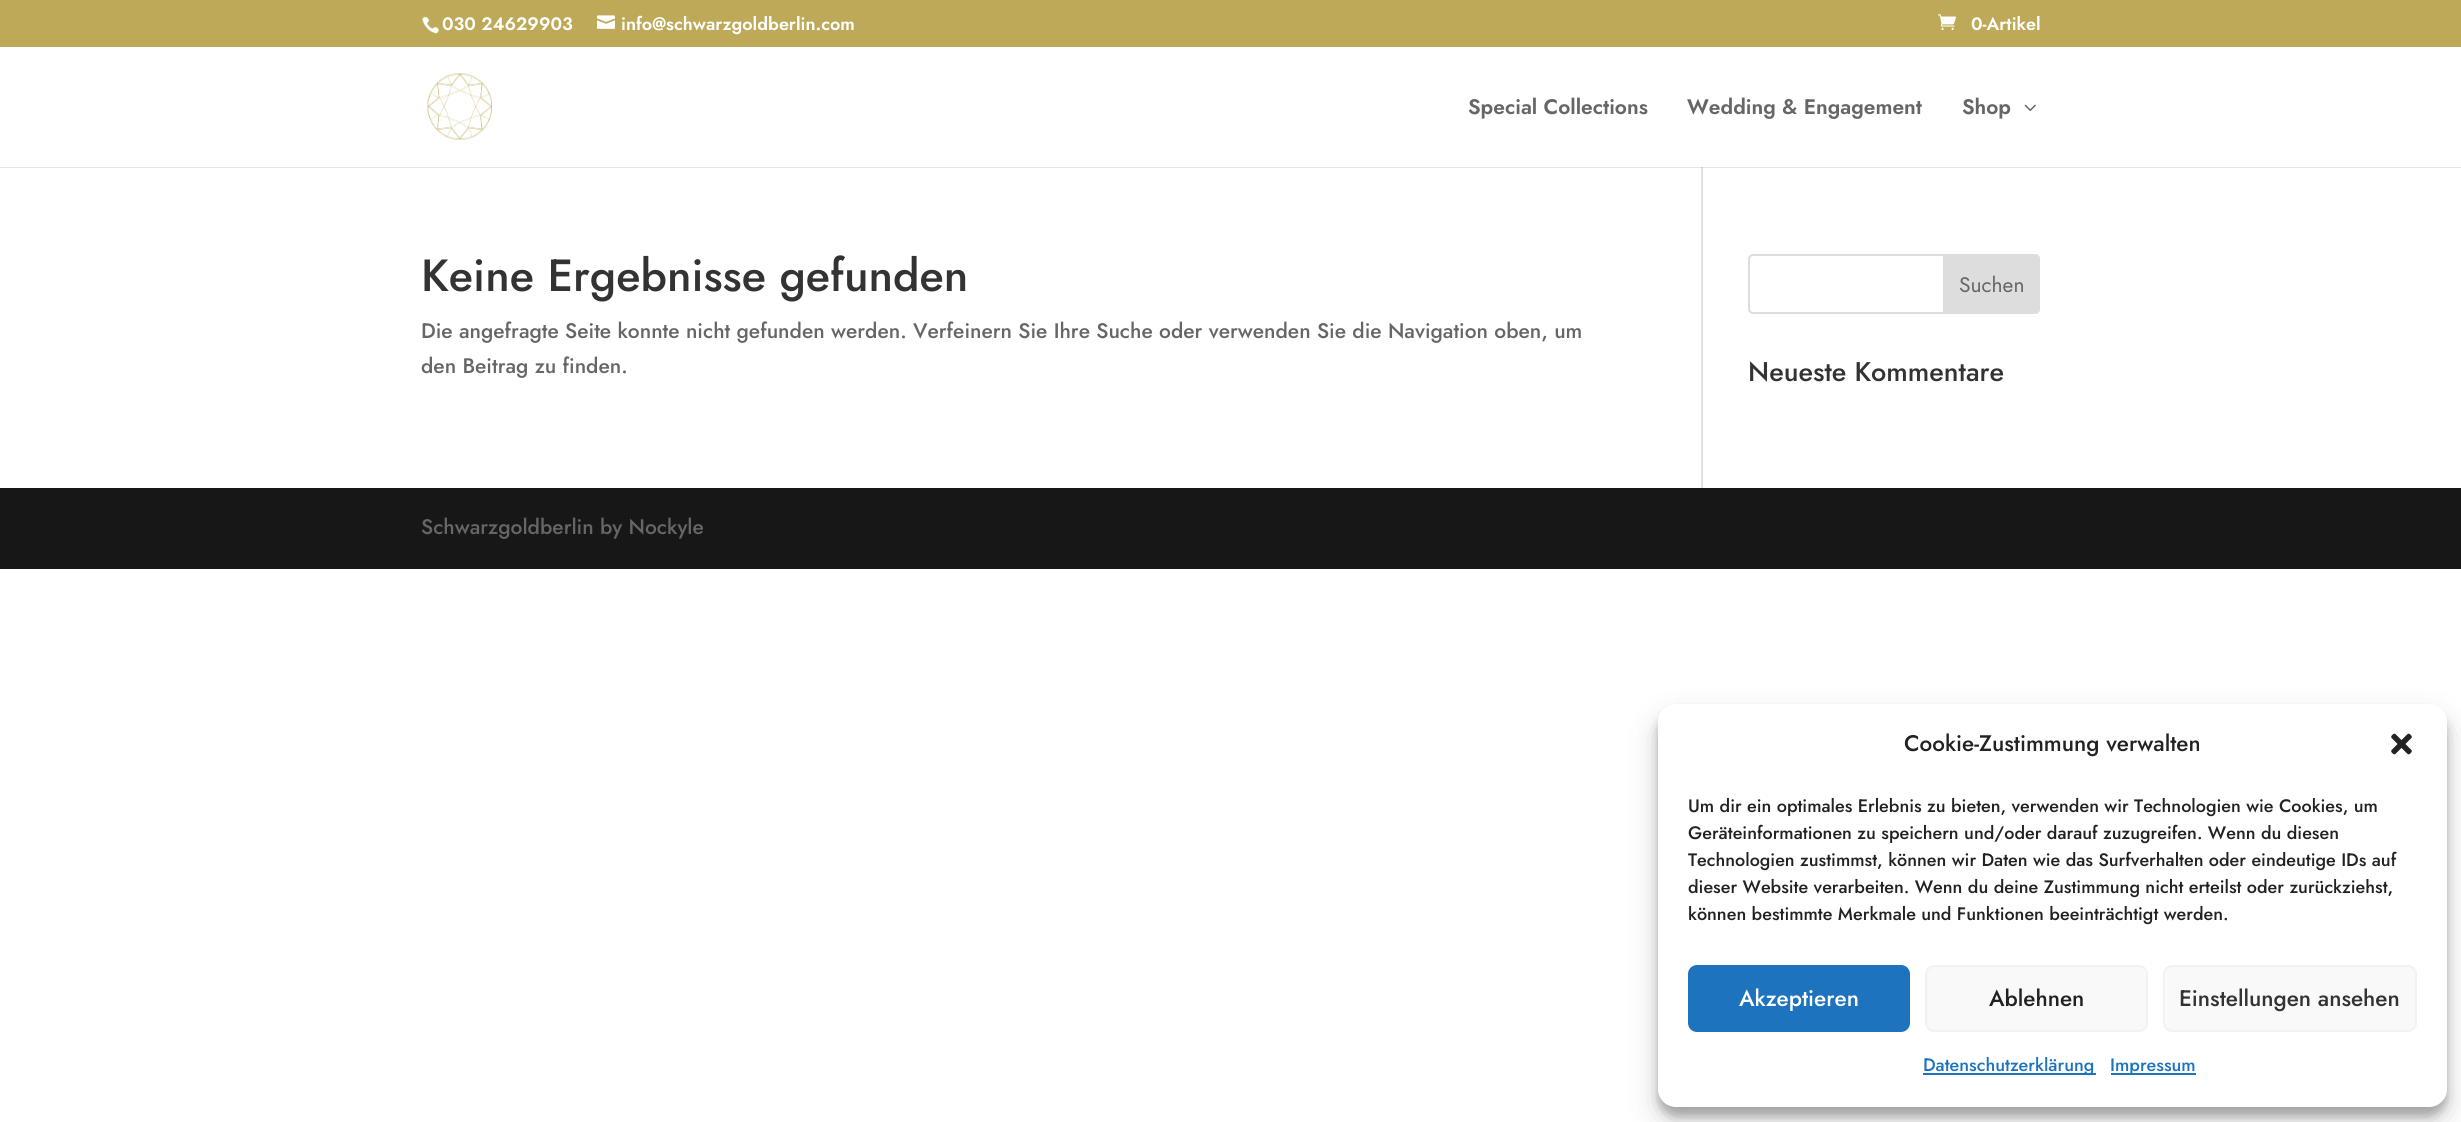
#include <cairo.h>
#include <math.h>
#include <stddef.h>

typedef struct { const char *family; double size; int italic, bold; unsigned color; } style_t;
static cairo_t *ctx;

static void ink(unsigned color) {
    cairo_set_source_rgb(ctx, (color >> 16) / 255.0, (color >> 8 & 255) / 255.0, (color & 255) / 255.0);
}

static void write(double x, double y, const char *s, const style_t *st) {
    cairo_select_font_face(ctx, st->family, st->italic ? CAIRO_FONT_SLANT_ITALIC : CAIRO_FONT_SLANT_NORMAL,
        st->bold ? CAIRO_FONT_WEIGHT_BOLD : CAIRO_FONT_WEIGHT_NORMAL);
    cairo_set_font_size(ctx, st->size);
    ink(st->color);
    cairo_move_to(ctx, x, y);
    cairo_show_text(ctx, s);
}

static void block(double x, double y, double w, double h, unsigned color) {
    ink(color);
    cairo_rectangle(ctx, x, y, w, h);
    cairo_fill(ctx);
}

static void round_path(double x, double y, double w, double h, double r) {
    cairo_new_sub_path(ctx);
    cairo_arc(ctx, x + w - r, y + h - r, r, 0, M_PI / 2);
    cairo_arc(ctx, x + r, y + h - r, r, M_PI / 2, M_PI);
    cairo_arc(ctx, x + r, y + r, r, M_PI, 1.5 * M_PI);
    cairo_arc(ctx, x + w - r, y + r, r, 1.5 * M_PI, 2 * M_PI);
    cairo_close_path(ctx);
}

static void blur_box(double x, double y, double w, double h, double r, double blur, double alpha) {
    cairo_push_group_with_content(ctx, CAIRO_CONTENT_ALPHA);
    cairo_set_operator(ctx, CAIRO_OPERATOR_SOURCE);
    for (int i = 15; i >= -15 && fmin(w, h) + blur * i / 3 > 0; i -= 2) {
        double e = blur * i / 6;
        cairo_set_source_rgba(ctx, 0, 0, 0, alpha * erfc((i - 1) / 8.5) / 2);
        round_path(x - e, y - e, w + 2 * e, h + 2 * e, fmax(0, fmin(r + e + blur * .6, fmin(w, h) / 2 + e)));
        cairo_fill(ctx);
    }
    cairo_pattern_t *soft = cairo_pop_group(ctx);
    cairo_mask(ctx, soft);
    cairo_pattern_destroy(soft);
}

static void paste(const char *path, double x, double y, double w, double h) {
    cairo_surface_t *image = cairo_image_surface_create_from_png(path);
    cairo_save(ctx);
    cairo_set_source_surface(ctx, image, x, y);
    cairo_rectangle(ctx, x, y, w, h);
    cairo_fill(ctx);
    cairo_restore(ctx);
    cairo_surface_destroy(image);
}

static const style_t s1 = {"Jost SemiBold", 18, 0, 0, 0xffffff};
static const style_t s2 = {"Jost SemiBold", 21, 0, 0, 0x666666};
static const style_t s3 = {"Jost Medium", 45, 0, 0, 0x333333};
static const style_t s4 = {"Jost Medium", 21, 0, 0, 0x666666};
static const style_t s5 = {"Jost", 21, 0, 0, 0x666666};
static const style_t s6 = {"Jost Medium", 27, 0, 0, 0x333333};
static const style_t s7 = {"Jost Medium", 22.5, 0, 0, 0x222222};
static const style_t s8 = {"Jost Medium", 18, 0, 0, 0x222222};
static const style_t s9 = {"Jost Medium", 22.5, 0, 0, 0xffffff};
static const style_t s10 = {"Jost Medium", 22.5, 0, 0, 0x333333};
static const style_t s11 = {"Jost Medium", 18, 0, 0, 0x1e73be};

int main(void) {
    cairo_surface_t *surface = cairo_image_surface_create(CAIRO_FORMAT_RGB24, 2461, 1122);
    ctx = cairo_create(surface);
    cairo_font_options_t *options = cairo_font_options_create();
    cairo_font_options_set_hint_metrics(options, CAIRO_HINT_METRICS_OFF);
    cairo_font_options_set_hint_style(options, CAIRO_HINT_STYLE_NONE);
    cairo_set_font_options(ctx, options);
    cairo_set_miter_limit(ctx, 4);
    ink(0xffffff);
    cairo_paint(ctx);
    block(0, 0, 2461, 47, 0xbda957);
    paste("pic1.png", 422, 16, 17, 18);
    write(442, 30, "030 24629903", &s1);
    paste("pic2.png", 597, 15, 18, 14);
    write(621, 30, "info@schwarzgoldberlin.com", &s1);
    paste("pic3.png", 1938, 14, 18, 16);
    write(1971, 30, "0-Artikel", &s1);
    block(1701, 167, 2, 321, 0xe2e2e2);
    cairo_set_source_rgba(ctx, 0, 0, 0, 0.1);
    cairo_new_path(ctx);
    cairo_move_to(ctx, 0, 166);
    cairo_line_to(ctx, 0, 168);
    cairo_line_to(ctx, 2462, 168);
    cairo_line_to(ctx, 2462, 48);
    cairo_line_to(ctx, 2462, 166);
    cairo_close_path(ctx);
    cairo_fill(ctx);
    block(0, 166, 2461, 1, 0xffffff);
    paste("pic4.png", 427, 73, 65, 67);
    write(1468, 114, "Special Collections", &s2);
    write(1687, 114, "Wedding & Engagement", &s2);
    write(1962, 114, "Shop", &s2);
    paste("pic5.png", 2024, 104, 12, 7);
    write(421, 291, "Keine Ergebnisse gefunden", &s3);
    write(421, 338, "Die angefragte Seite konnte nicht gefunden werden. Verfeinern Sie Ihre Suche oder verwenden Sie die Navigation oben, um", &s4);
    write(421, 373, "den Beitrag zu finden.", &s4);
    round_path(1749, 255, 290, 58, 4);
    ink(0xdddddd);
    cairo_stroke(ctx);
    cairo_new_path(ctx);
    cairo_move_to(ctx, 1944, 255);
    cairo_line_to(ctx, 2035, 255);
    cairo_curve_to(ctx, 2037, 255, 2039, 257, 2039, 259);
    cairo_line_to(ctx, 2039, 309);
    cairo_curve_to(ctx, 2039, 311, 2037, 313, 2035, 313);
    cairo_line_to(ctx, 1944, 313);
    cairo_close_path(ctx);
    cairo_fill_preserve(ctx);
    cairo_stroke(ctx);
    write(1959, 292, "Suchen", &s5);
    write(1748, 381, "Neueste Kommentare", &s6);
    block(0, 488, 2461, 81, 0x171717);
    write(421, 534, "Schwarzgoldberlin by Nockyle", &s4);
    ink(0x000000);
    blur_box(1658, 713, 789, 403, 18, 4.5, 0.23);
    blur_box(1658, 719, 789, 403, 18, 15, 0.19);
    ink(0xffffff);
    round_path(1658, 704, 789, 403, 18);
    cairo_fill(ctx);
    write(1904, 751, "Cookie-Zustimmung verwalten", &s7);
    paste("pic6.png", 2391, 733, 21, 22);
    write(1688, 812, "Um dir ein optimales Erlebnis zu bieten, verwenden wir Technologien wie Cookies, um", &s8);
    write(1688, 839, "Geräteinformationen zu speichern und/oder darauf zuzugreifen. Wenn du diesen", &s8);
    cairo_save(ctx);
    cairo_rectangle(ctx, 1688, 792, 729, 143);
    cairo_clip(ctx);
    write(1688, 866, "Technologien zustimmst, können wir Daten wie das Surfverhalten oder eindeutige IDs auf", &s8);
    cairo_restore(ctx);
    write(1688, 893, "dieser Website verarbeiten. Wenn du deine Zustimmung nicht erteilst oder zurückziehst,", &s8);
    write(1688, 920, "können bestimmte Merkmale und Funktionen beeinträchtigt werden.", &s8);
    ink(0x1e73be);
    round_path(1689, 966, 220, 65, 8);
    cairo_fill_preserve(ctx);
    cairo_stroke(ctx);
    write(1739, 1006, "Akzeptieren", &s9);
    ink(0xf9f9f9);
    round_path(1926, 966, 221, 65, 8);
    cairo_fill_preserve(ctx);
    ink(0xf2f2f2);
    cairo_stroke(ctx);
    write(1989, 1006, "Ablehnen", &s7);
    ink(0xf9f9f9);
    round_path(2164, 966, 252, 65, 8);
    cairo_fill_preserve(ctx);
    ink(0xf2f2f2);
    cairo_stroke(ctx);
    write(2179, 1006, "Einstellungen ansehen", &s10);
    block(1923, 1073, 173, 2, 0x1e73be);
    write(1923, 1071, "Datenschutzerklärung", &s11);
    block(2111, 1073, 85, 2, 0x1e73be);
    write(2110, 1071, "Impressum", &s11);
    cairo_surface_write_to_png(surface, "screenshot.png");
    cairo_font_options_destroy(options);
    cairo_destroy(ctx);
    cairo_surface_destroy(surface);
    return 0;
}
